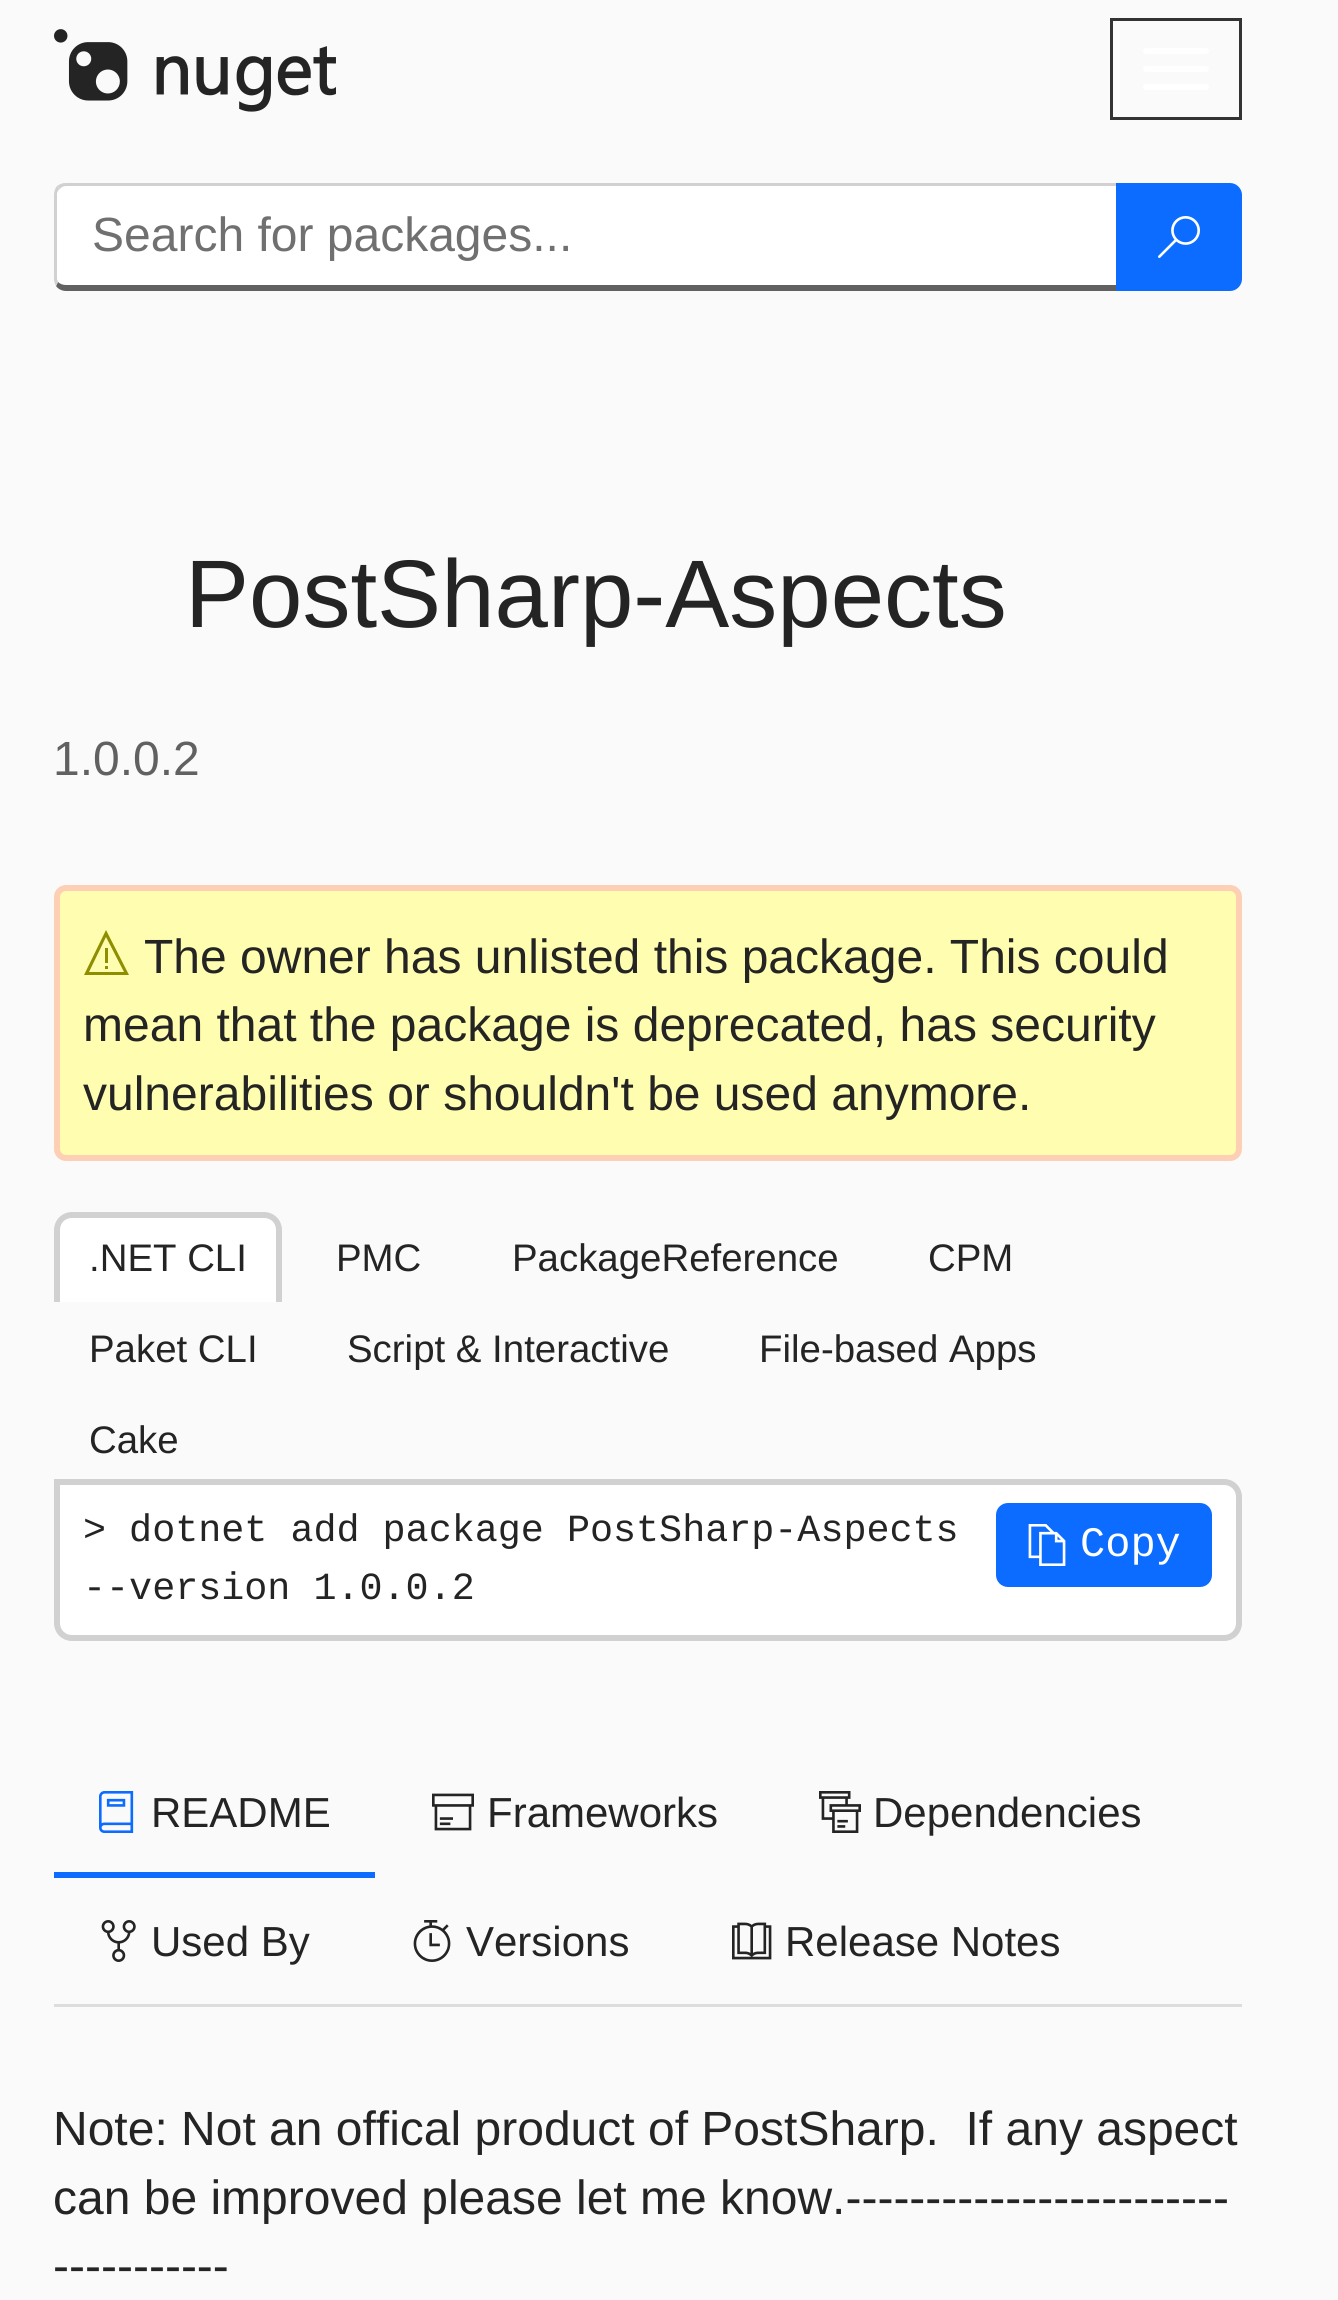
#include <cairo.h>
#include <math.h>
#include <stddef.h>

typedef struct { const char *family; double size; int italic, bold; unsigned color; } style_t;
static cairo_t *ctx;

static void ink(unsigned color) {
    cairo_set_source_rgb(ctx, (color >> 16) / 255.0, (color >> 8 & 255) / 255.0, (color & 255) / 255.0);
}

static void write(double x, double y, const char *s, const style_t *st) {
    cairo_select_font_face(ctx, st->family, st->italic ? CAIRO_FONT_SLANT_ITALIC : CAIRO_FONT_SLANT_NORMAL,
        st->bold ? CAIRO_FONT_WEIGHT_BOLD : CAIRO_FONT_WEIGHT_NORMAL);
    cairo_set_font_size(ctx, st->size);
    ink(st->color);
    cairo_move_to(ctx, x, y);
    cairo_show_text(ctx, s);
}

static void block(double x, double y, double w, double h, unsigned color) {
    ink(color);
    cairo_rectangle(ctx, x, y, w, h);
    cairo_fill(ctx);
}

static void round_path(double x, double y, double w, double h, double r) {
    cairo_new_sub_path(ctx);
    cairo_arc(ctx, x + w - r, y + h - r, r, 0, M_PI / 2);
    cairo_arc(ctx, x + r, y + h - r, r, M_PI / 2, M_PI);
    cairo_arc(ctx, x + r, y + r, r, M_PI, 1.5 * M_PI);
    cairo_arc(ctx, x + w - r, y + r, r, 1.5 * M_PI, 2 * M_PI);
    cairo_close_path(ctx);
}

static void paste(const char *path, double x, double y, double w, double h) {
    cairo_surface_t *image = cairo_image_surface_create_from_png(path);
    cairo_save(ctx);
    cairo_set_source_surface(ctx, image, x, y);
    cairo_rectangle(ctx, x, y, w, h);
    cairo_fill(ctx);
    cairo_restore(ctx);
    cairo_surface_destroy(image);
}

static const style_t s1 = {"Liberation Sans", 48, 0, 0, 0x707070};
static const style_t s2 = {"Liberation Sans", 96, 0, 0, 0x242424};
static const style_t s3 = {"Liberation Sans", 48, 0, 0, 0x616161};
static const style_t s4 = {"Liberation Sans", 48, 0, 0, 0x242424};
static const style_t s5 = {"Liberation Sans", 38.4, 0, 0, 0x242424};
static const style_t s6 = {"Liberation Mono", 38.4, 0, 0, 0x242424};
static const style_t s7 = {"Liberation Mono", 42, 0, 0, 0xffffff};
static const style_t s8 = {"Liberation Sans", 42, 0, 0, 0x242424};

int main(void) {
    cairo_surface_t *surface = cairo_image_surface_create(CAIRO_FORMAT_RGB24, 1338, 2300);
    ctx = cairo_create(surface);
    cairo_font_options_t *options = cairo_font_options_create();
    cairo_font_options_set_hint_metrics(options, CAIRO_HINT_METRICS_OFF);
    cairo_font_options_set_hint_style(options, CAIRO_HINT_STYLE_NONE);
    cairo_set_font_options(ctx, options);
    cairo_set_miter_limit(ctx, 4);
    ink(0xfafafa);
    cairo_paint(ctx);
    paste("pic1.png", 54, 29, 282, 83);
    cairo_rectangle(ctx, 1111.5, 19.5, 129, 99);
    ink(0x333333);
    cairo_set_line_width(ctx, 3);
    cairo_stroke(ctx);
    ink(0xffffff);
    round_path(1143, 48, 66, 6, 3);
    cairo_fill(ctx);
    round_path(1143, 66, 66, 6, 3);
    cairo_fill(ctx);
    round_path(1143, 84, 66, 6, 3);
    cairo_fill(ctx);
    cairo_new_path(ctx);
    cairo_move_to(ctx, 66, 186);
    cairo_line_to(ctx, 1116, 186);
    cairo_line_to(ctx, 1116, 285);
    cairo_line_to(ctx, 66, 285);
    cairo_curve_to(ctx, 61, 285, 57, 282, 57, 279);
    cairo_line_to(ctx, 57, 195);
    cairo_curve_to(ctx, 57, 190, 61, 186, 66, 186);
    cairo_close_path(ctx);
    cairo_fill(ctx);
    ink(0xd1d1d1);
    cairo_new_path(ctx);
    cairo_move_to(ctx, 66, 183);
    cairo_curve_to(ctx, 62, 183, 60, 184, 57, 186);
    cairo_line_to(ctx, 60, 189);
    cairo_curve_to(ctx, 61, 187, 64, 186, 66, 186);
    cairo_line_to(ctx, 1116, 186);
    cairo_line_to(ctx, 1119, 183);
    cairo_close_path(ctx);
    cairo_fill(ctx);
    ink(0x616161);
    cairo_new_path(ctx);
    cairo_move_to(ctx, 1119, 291);
    cairo_line_to(ctx, 1116, 285);
    cairo_line_to(ctx, 66, 285);
    cairo_curve_to(ctx, 63, 285, 60, 284, 58, 282);
    cairo_line_to(ctx, 56, 286);
    cairo_curve_to(ctx, 58, 289, 62, 291, 66, 291);
    cairo_close_path(ctx);
    cairo_fill(ctx);
    ink(0xd1d1d1);
    cairo_new_path(ctx);
    cairo_move_to(ctx, 54, 195);
    cairo_line_to(ctx, 54, 279);
    cairo_curve_to(ctx, 54, 282, 55, 284, 56, 286);
    cairo_line_to(ctx, 58, 282);
    cairo_line_to(ctx, 57, 279);
    cairo_line_to(ctx, 57, 193);
    cairo_curve_to(ctx, 58, 191, 58, 190, 60, 189);
    cairo_line_to(ctx, 57, 186);
    cairo_curve_to(ctx, 55, 188, 54, 192, 54, 195);
    cairo_close_path(ctx);
    cairo_fill(ctx);
    write(92, 251, "Search for packages...", &s1);
    ink(0x0b6cff);
    cairo_new_path(ctx);
    cairo_move_to(ctx, 1116, 183);
    cairo_line_to(ctx, 1230, 183);
    cairo_curve_to(ctx, 1236.5, 183, 1242, 188.5, 1242, 195);
    cairo_line_to(ctx, 1242, 279);
    cairo_curve_to(ctx, 1242, 285.5, 1236.5, 291, 1230, 291);
    cairo_line_to(ctx, 1116, 291);
    cairo_close_path(ctx);
    cairo_fill(ctx);
    paste("pic2.png", 1158, 216, 42, 42);
    write(185, 627, "PostSharp-Aspects", &s2);
    write(53, 775, "1.0.0.2", &s3);
    ink(0xfffdaf);
    round_path(57, 888, 1182, 270, 9);
    cairo_fill_preserve(ctx);
    ink(0xfdcfb4);
    cairo_set_line_width(ctx, 6);
    cairo_stroke(ctx);
    ink(0x8f8d00);
    cairo_new_path(ctx);
    cairo_move_to(ctx, 129, 975);
    cairo_line_to(ctx, 84, 975);
    cairo_line_to(ctx, 106, 930);
    cairo_close_path(ctx);
    cairo_move_to(ctx, 89, 972);
    cairo_line_to(ctx, 124, 972);
    cairo_line_to(ctx, 106, 937);
    cairo_close_path(ctx);
    cairo_move_to(ctx, 108, 948);
    cairo_line_to(ctx, 108, 963);
    cairo_line_to(ctx, 105, 963);
    cairo_line_to(ctx, 105, 948);
    cairo_close_path(ctx);
    cairo_move_to(ctx, 105, 966);
    cairo_line_to(ctx, 108, 966);
    cairo_line_to(ctx, 108, 969);
    cairo_line_to(ctx, 105, 969);
    cairo_close_path(ctx);
    cairo_fill(ctx);
    write(144, 973, "The owner has unlisted this package. This could", &s4);
    write(83, 1041, "mean that the package is deprecated, has security", &s4);
    write(83, 1110, "vulnerabilities or shouldn't be used anymore.", &s4);
    ink(0xffffff);
    cairo_new_path(ctx);
    cairo_move_to(ctx, 72, 1212);
    cairo_line_to(ctx, 264, 1212);
    cairo_curve_to(ctx, 274, 1212, 282, 1220, 282, 1230);
    cairo_line_to(ctx, 282, 1302);
    cairo_line_to(ctx, 54, 1302);
    cairo_line_to(ctx, 54, 1230);
    cairo_curve_to(ctx, 54, 1220, 62, 1212, 72, 1212);
    cairo_close_path(ctx);
    cairo_fill(ctx);
    ink(0xd1d1d1);
    cairo_set_fill_rule(ctx, CAIRO_FILL_RULE_EVEN_ODD);
    cairo_new_path(ctx);
    cairo_move_to(ctx, 72, 1212);
    cairo_line_to(ctx, 264, 1212);
    cairo_curve_to(ctx, 274, 1212, 282, 1220, 282, 1230);
    cairo_line_to(ctx, 282, 1302);
    cairo_line_to(ctx, 54, 1302);
    cairo_line_to(ctx, 54, 1230);
    cairo_curve_to(ctx, 54, 1220, 62, 1212, 72, 1212);
    cairo_close_path(ctx);
    cairo_move_to(ctx, 72, 1218);
    cairo_line_to(ctx, 264, 1218);
    cairo_curve_to(ctx, 271, 1218, 276, 1223, 276, 1230);
    cairo_line_to(ctx, 276, 1302);
    cairo_line_to(ctx, 60, 1302);
    cairo_line_to(ctx, 60, 1230);
    cairo_curve_to(ctx, 60, 1223, 65, 1218, 72, 1218);
    cairo_close_path(ctx);
    cairo_fill(ctx);
    write(89, 1271, ".NET CLI", &s5);
    write(336, 1271, "PMC", &s5);
    write(512, 1271, "PackageReference", &s5);
    write(928, 1271, "CPM", &s5);
    write(89, 1362, "Paket CLI", &s5);
    write(347, 1362, "Script & Interactive", &s5);
    write(759, 1362, "File-based Apps", &s5);
    write(89, 1453, "Cake", &s5);
    ink(0xffffff);
    cairo_new_path(ctx);
    cairo_move_to(ctx, 57, 1482);
    cairo_line_to(ctx, 1224, 1482);
    cairo_curve_to(ctx, 1232.5, 1482, 1239, 1488.5, 1239, 1497);
    cairo_line_to(ctx, 1239, 1623);
    cairo_curve_to(ctx, 1239, 1631.5, 1232.5, 1638, 1224, 1638);
    cairo_line_to(ctx, 72, 1638);
    cairo_curve_to(ctx, 63.5, 1638, 57, 1631.5, 57, 1623);
    cairo_close_path(ctx);
    cairo_fill_preserve(ctx);
    ink(0xd1d1d1);
    cairo_stroke(ctx);
    write(83, 1541, "> dotnet add package PostSharp-Aspects", &s6);
    write(83, 1599, "--version 1.0.0.2", &s6);
    ink(0x0b6cff);
    round_path(996, 1503, 216, 84, 12);
    cairo_fill(ctx);
    paste("pic3.png", 1028, 1524, 38, 42);
    write(1080, 1556, "Copy", &s7);
    block(54, 2004, 1188, 3, 0xdddddd);
    block(54, 1872, 321, 6, 0x0b6cff);
    paste("pic4.png", 99, 1791, 35, 42);
    write(151, 1827, "README", &s8);
    paste("pic5.png", 432, 1793, 42, 38);
    write(487, 1827, "Frameworks", &s8);
    paste("pic6.png", 819, 1791, 42, 42);
    write(873, 1827, "Dependencies", &s8);
    paste("pic7.png", 101, 1920, 35, 42);
    write(151, 1956, "Used By", &s8);
    paste("pic8.png", 413, 1920, 38, 42);
    write(466, 1956, "Versions", &s8);
    paste("pic9.png", 732, 1922, 40, 38);
    write(785, 1956, "Release Notes", &s8);
    write(53, 2145, "Note: Not an offical product of PostSharp.  If any aspect", &s4);
    write(53, 2214, "can be improved please let me know.------------------------", &s4);
    write(53, 2282, "-----------", &s4);
    cairo_surface_write_to_png(surface, "screenshot.png");
    cairo_font_options_destroy(options);
    cairo_destroy(ctx);
    cairo_surface_destroy(surface);
    return 0;
}
